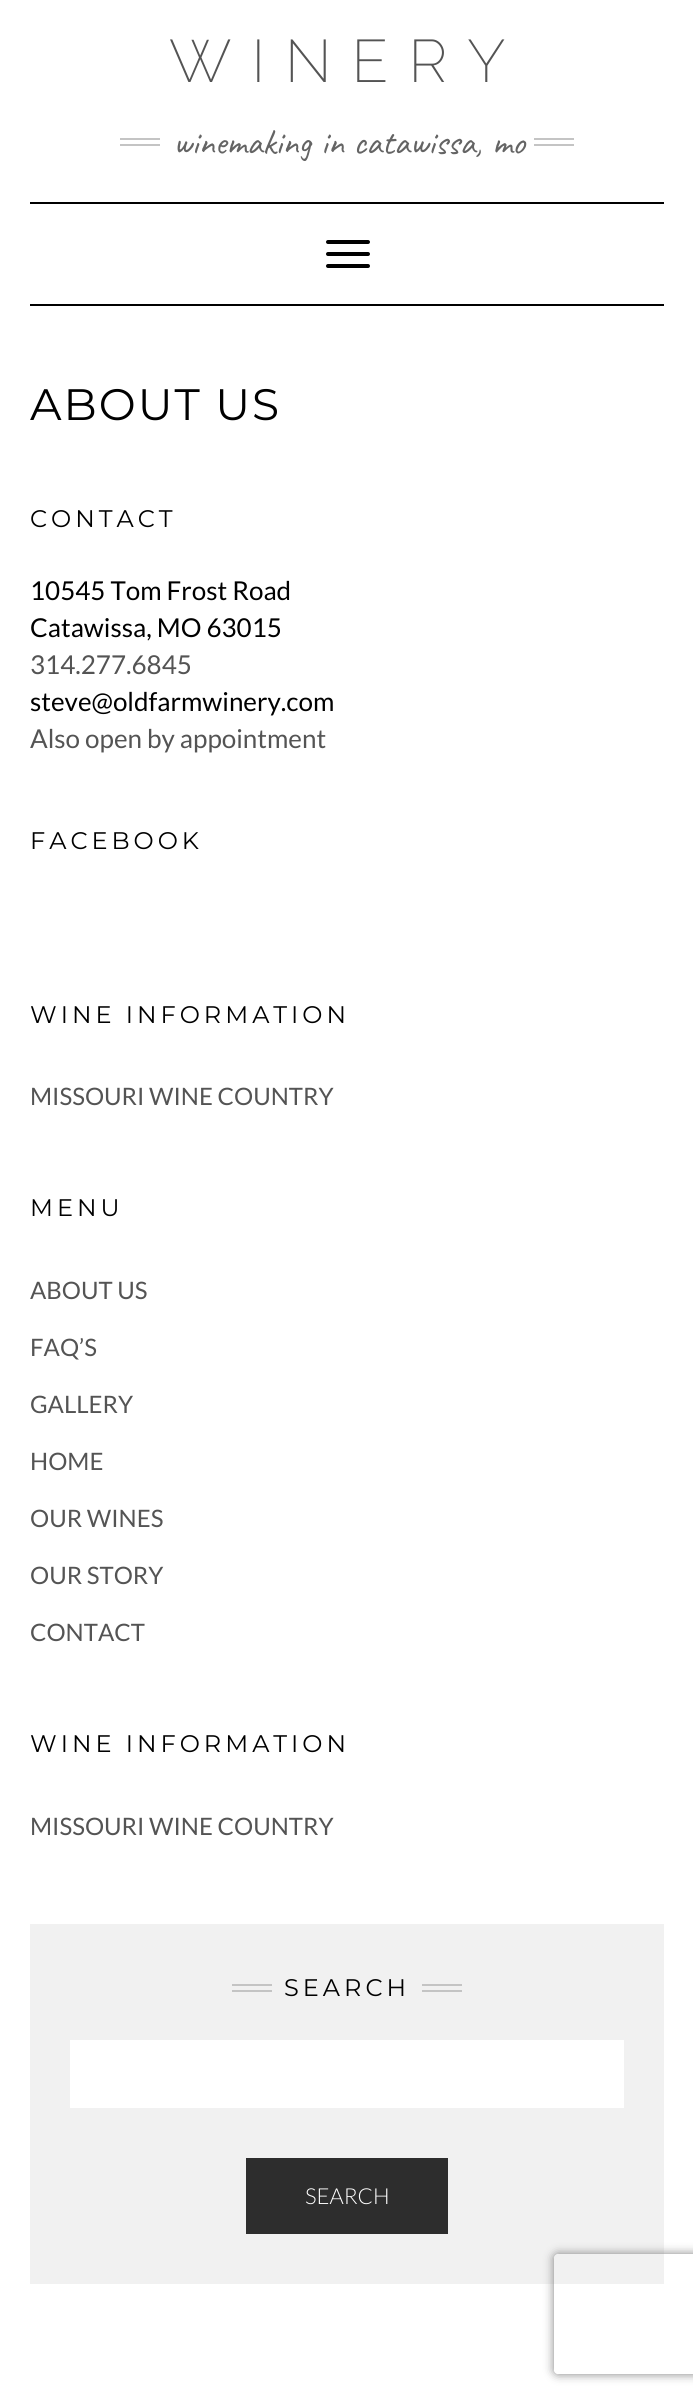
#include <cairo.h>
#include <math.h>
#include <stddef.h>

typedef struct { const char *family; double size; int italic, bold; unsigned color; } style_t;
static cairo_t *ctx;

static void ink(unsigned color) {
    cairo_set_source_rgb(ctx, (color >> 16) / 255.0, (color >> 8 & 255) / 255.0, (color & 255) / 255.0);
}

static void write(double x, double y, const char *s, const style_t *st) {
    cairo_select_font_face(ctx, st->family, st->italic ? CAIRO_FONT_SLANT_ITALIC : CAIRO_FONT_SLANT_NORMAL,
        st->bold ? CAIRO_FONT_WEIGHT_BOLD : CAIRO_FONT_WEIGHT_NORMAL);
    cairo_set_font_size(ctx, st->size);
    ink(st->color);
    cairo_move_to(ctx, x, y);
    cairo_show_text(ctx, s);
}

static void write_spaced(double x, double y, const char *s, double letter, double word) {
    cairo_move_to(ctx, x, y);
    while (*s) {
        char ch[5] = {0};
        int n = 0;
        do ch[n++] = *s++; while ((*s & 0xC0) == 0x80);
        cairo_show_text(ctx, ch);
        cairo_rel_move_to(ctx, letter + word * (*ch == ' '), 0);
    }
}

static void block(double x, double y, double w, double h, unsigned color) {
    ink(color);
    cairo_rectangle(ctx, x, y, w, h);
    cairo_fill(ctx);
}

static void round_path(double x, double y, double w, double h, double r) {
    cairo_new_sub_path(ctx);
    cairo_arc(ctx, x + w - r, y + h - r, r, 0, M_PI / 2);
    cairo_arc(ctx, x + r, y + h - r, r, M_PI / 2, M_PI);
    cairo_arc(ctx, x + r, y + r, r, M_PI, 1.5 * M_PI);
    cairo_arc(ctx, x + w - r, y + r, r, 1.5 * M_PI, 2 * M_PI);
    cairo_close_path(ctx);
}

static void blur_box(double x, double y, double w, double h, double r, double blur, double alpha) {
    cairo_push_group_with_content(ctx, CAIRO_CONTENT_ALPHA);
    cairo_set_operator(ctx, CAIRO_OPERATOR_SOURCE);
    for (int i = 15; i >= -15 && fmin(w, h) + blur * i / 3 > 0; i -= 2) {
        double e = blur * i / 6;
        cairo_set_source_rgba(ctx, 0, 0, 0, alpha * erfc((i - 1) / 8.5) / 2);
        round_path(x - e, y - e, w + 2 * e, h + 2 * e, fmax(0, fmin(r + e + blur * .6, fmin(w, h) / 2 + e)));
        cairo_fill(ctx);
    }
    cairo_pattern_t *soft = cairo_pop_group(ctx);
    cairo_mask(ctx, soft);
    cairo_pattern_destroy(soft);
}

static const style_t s1 = {"Lato", 26, 0, 0, 0x000000};
static const style_t s2 = {"Lato", 26, 0, 0, 0x545454};
static const style_t s3 = {"Lato", 24, 0, 0, 0x545454};
static const style_t s4 = {"Lato Light", 22, 0, 0, 0xffffff};

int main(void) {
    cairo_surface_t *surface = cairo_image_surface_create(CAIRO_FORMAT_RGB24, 693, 2401);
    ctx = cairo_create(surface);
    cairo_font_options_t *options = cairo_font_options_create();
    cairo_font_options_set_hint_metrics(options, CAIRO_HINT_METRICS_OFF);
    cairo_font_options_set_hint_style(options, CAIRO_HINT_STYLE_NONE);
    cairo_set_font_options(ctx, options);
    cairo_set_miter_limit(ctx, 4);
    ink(0xffffff);
    cairo_paint(ctx);
    cairo_select_font_face(ctx, "Raleway Thin", CAIRO_FONT_SLANT_NORMAL, CAIRO_FONT_WEIGHT_NORMAL);
    cairo_set_font_size(ctx, 60);
    ink(0x545454);
    write_spaced(169, 82, "WINERY", 20, 0);
    block(120, 138, 40, 2, 0xc4c4c4);
    block(120, 144, 40, 2, 0xc4c4c4);
    cairo_select_font_face(ctx, "Caveat", CAIRO_FONT_SLANT_NORMAL, CAIRO_FONT_WEIGHT_NORMAL);
    cairo_set_font_size(ctx, 36);
    ink(0x646464);
    write_spaced(173, 154, "winemaking in catawissa, mo", 0, 1);
    block(534, 138, 40, 2, 0xc4c4c4);
    block(534, 144, 40, 2, 0xc4c4c4);
    block(30, 202, 634, 2, 0x000000);
    block(30, 304, 634, 2, 0x000000);
    round_path(326, 240, 44, 4, 2);
    cairo_fill(ctx);
    round_path(326, 252, 44, 4, 2);
    cairo_fill(ctx);
    round_path(326, 264, 44, 4, 2);
    cairo_fill(ctx);
    cairo_select_font_face(ctx, "Montserrat", CAIRO_FONT_SLANT_NORMAL, CAIRO_FONT_WEIGHT_NORMAL);
    cairo_set_font_size(ctx, 44);
    write_spaced(30, 420, "ABOUT US", 2, 0);
    cairo_set_font_size(ctx, 24);
    write_spaced(30, 527, "CONTACT", 4, 0);
    write(30, 600, "10545 Tom Frost Road", &s1);
    write(30, 637, "Catawissa, MO 63015", &s1);
    write(30, 674, "314.277.6845", &s2);
    write(30, 711, "steve@oldfarmwinery.com", &s1);
    write(30, 748, "Also open by appointment", &s2);
    cairo_select_font_face(ctx, "Montserrat", CAIRO_FONT_SLANT_NORMAL, CAIRO_FONT_WEIGHT_NORMAL);
    cairo_set_font_size(ctx, 24);
    ink(0x000000);
    write_spaced(30, 849, "FACEBOOK", 4, 0);
    write_spaced(30, 1023, "WINE INFORMATION", 4, 0);
    write(30, 1105, "MISSOURI WINE COUNTRY", &s3);
    cairo_select_font_face(ctx, "Montserrat", CAIRO_FONT_SLANT_NORMAL, CAIRO_FONT_WEIGHT_NORMAL);
    ink(0x000000);
    write_spaced(30, 1216, "MENU", 4, 0);
    write(30, 1299, "ABOUT US", &s3);
    write(30, 1356, "FAQ’S", &s3);
    write(30, 1413, "GALLERY", &s3);
    write(30, 1470, "HOME", &s3);
    write(30, 1527, "OUR WINES", &s3);
    write(30, 1584, "OUR STORY", &s3);
    write(30, 1641, "CONTACT", &s3);
    cairo_select_font_face(ctx, "Montserrat", CAIRO_FONT_SLANT_NORMAL, CAIRO_FONT_WEIGHT_NORMAL);
    ink(0x000000);
    write_spaced(30, 1752, "WINE INFORMATION", 4, 0);
    write(30, 1835, "MISSOURI WINE COUNTRY", &s3);
    block(30, 1924, 634, 360, 0xf1f1f1);
    block(232, 1984, 40, 2, 0xc4c4c4);
    block(232, 1990, 40, 2, 0xc4c4c4);
    cairo_select_font_face(ctx, "Montserrat", CAIRO_FONT_SLANT_NORMAL, CAIRO_FONT_WEIGHT_NORMAL);
    ink(0x000000);
    write_spaced(284, 1996, "SEARCH", 4, 0);
    block(422, 1984, 40, 2, 0xc4c4c4);
    block(422, 1990, 40, 2, 0xc4c4c4);
    block(70, 2040, 554, 68, 0xffffff);
    block(246, 2158, 202, 76, 0x2d2d2d);
    write(305, 2204, "SEARCH", &s4);
    cairo_save(ctx);
    cairo_set_fill_rule(ctx, CAIRO_FILL_RULE_EVEN_ODD);
    cairo_new_path(ctx);
    cairo_move_to(ctx, 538, 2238);
    cairo_line_to(ctx, 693, 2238);
    cairo_line_to(ctx, 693, 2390);
    cairo_line_to(ctx, 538, 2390);
    cairo_close_path(ctx);
    cairo_move_to(ctx, 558, 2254);
    cairo_line_to(ctx, 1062, 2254);
    cairo_curve_to(ctx, 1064, 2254, 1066, 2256, 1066, 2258);
    cairo_line_to(ctx, 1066, 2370);
    cairo_curve_to(ctx, 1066, 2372, 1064, 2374, 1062, 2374);
    cairo_line_to(ctx, 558, 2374);
    cairo_curve_to(ctx, 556, 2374, 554, 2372, 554, 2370);
    cairo_line_to(ctx, 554, 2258);
    cairo_curve_to(ctx, 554, 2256, 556, 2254, 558, 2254);
    cairo_close_path(ctx);
    cairo_clip(ctx);
    ink(0x808080);
    blur_box(554, 2254, 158, 120, 4, 5, 1);
    cairo_restore(ctx);
    cairo_surface_write_to_png(surface, "screenshot.png");
    cairo_font_options_destroy(options);
    cairo_destroy(ctx);
    cairo_surface_destroy(surface);
    return 0;
}
